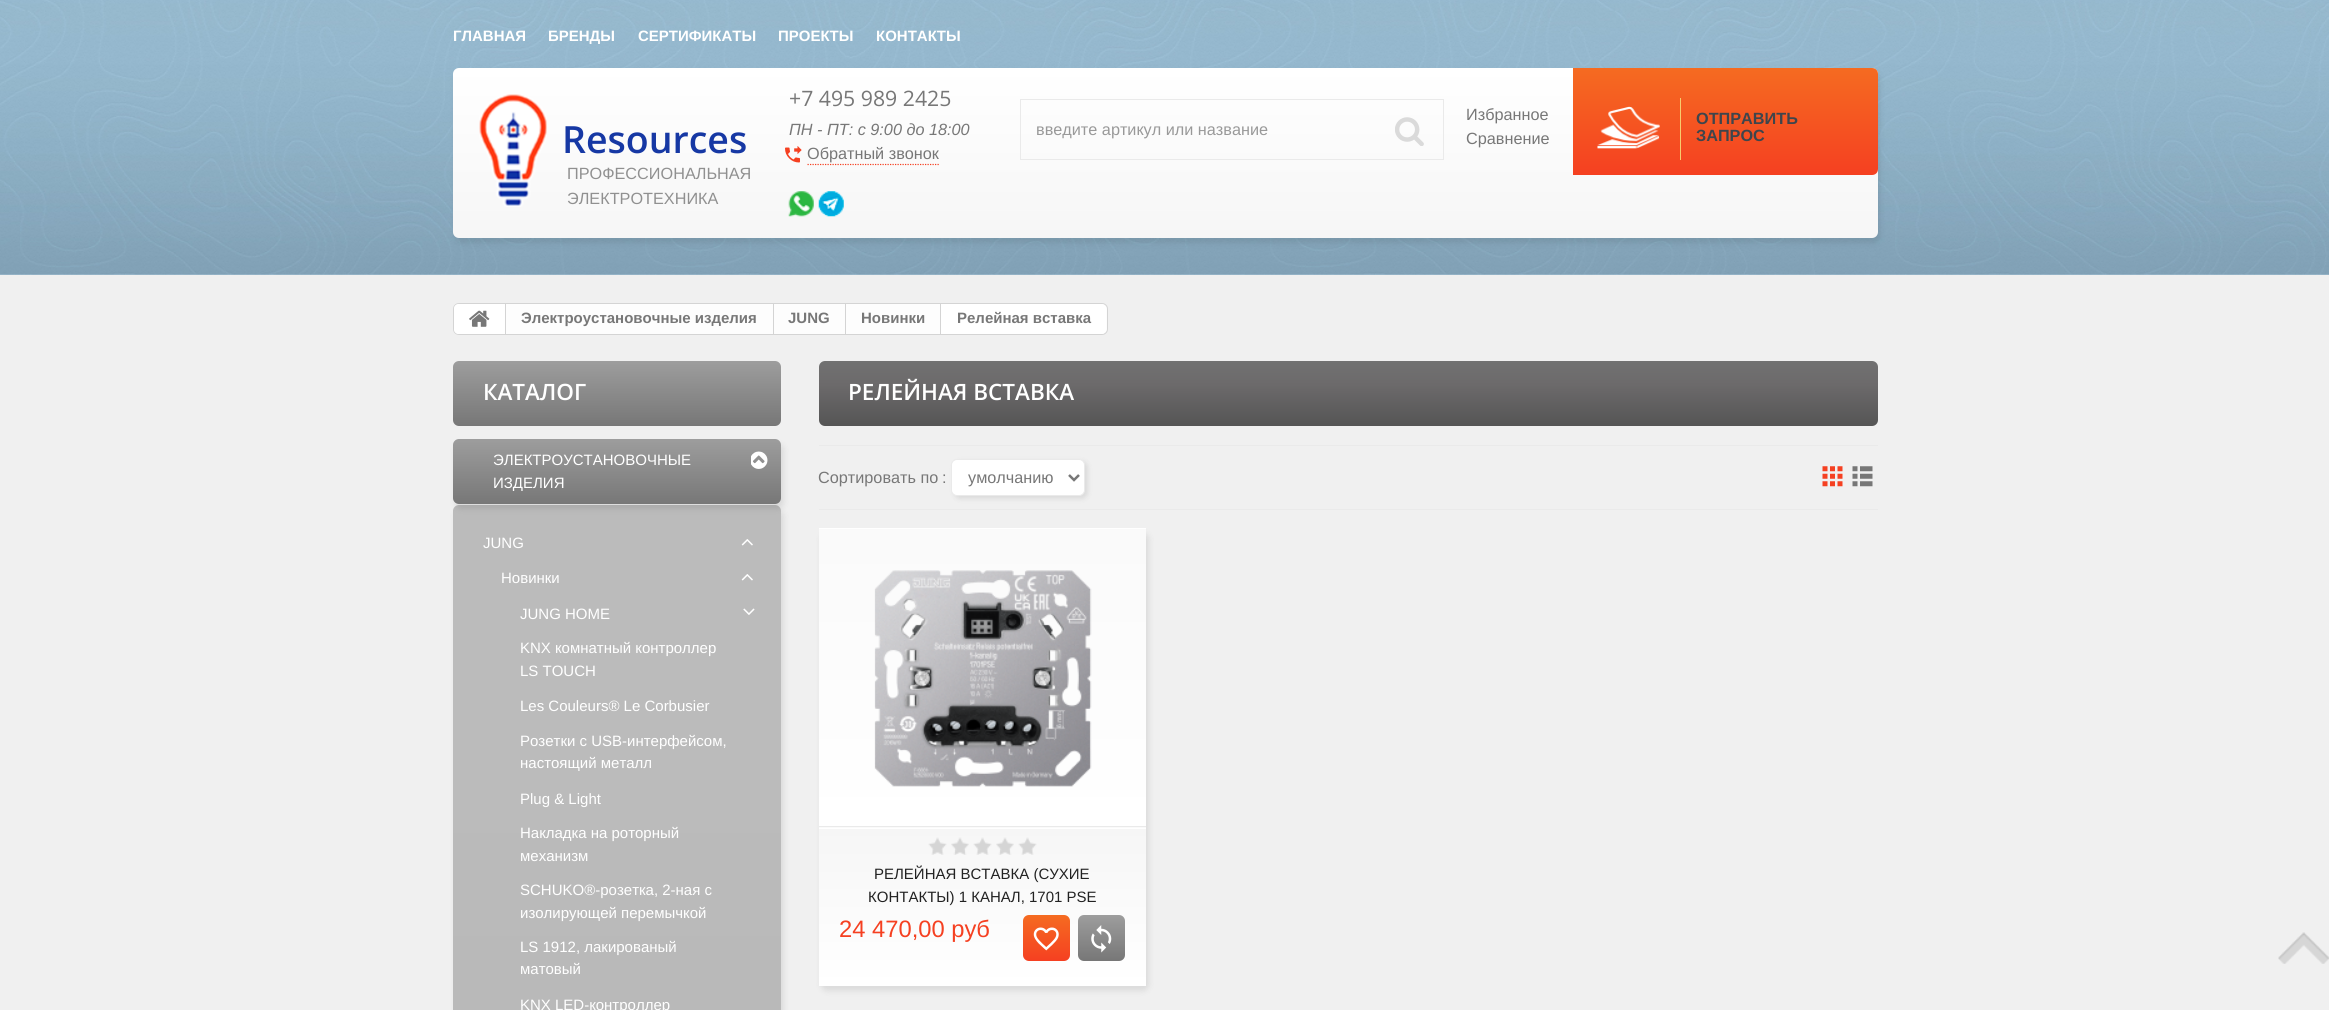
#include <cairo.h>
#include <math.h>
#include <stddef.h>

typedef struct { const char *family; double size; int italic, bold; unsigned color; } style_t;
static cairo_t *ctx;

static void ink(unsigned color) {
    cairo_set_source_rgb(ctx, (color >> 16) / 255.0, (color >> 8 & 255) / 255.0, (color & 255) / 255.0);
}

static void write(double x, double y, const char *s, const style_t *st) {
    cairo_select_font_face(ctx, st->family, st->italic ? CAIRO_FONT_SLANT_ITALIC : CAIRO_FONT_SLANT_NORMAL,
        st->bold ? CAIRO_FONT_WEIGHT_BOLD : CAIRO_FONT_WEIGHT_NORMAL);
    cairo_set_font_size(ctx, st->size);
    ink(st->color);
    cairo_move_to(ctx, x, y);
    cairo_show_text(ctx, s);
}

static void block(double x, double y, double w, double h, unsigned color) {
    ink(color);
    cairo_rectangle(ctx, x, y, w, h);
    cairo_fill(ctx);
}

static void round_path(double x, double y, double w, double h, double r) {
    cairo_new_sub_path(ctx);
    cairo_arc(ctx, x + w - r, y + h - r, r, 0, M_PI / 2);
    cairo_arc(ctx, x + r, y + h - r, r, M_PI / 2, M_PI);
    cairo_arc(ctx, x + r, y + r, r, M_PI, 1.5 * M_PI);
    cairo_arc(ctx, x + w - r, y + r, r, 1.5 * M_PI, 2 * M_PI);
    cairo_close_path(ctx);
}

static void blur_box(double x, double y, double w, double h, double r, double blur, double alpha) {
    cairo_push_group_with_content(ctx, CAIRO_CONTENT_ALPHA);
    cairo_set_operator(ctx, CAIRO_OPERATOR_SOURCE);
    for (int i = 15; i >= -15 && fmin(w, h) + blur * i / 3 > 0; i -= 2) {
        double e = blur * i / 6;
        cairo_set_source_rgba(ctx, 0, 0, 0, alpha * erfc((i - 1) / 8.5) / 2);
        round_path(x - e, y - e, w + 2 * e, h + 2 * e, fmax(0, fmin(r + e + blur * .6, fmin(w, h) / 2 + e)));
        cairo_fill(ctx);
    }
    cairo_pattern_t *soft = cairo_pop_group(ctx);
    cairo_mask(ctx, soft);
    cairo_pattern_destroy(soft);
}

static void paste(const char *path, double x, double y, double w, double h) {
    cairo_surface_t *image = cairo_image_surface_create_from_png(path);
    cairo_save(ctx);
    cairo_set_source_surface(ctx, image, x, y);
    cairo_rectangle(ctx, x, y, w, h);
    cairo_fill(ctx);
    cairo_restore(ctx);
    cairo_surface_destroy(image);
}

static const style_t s1 = {"Liberation Sans", 15, 0, 1, 0xffffff};
static const style_t s2 = {"Open Sans SemiBold", 37.5, 0, 0, 0x1638a4};
static const style_t s3 = {"Liberation Sans", 16.25, 0, 0, 0x909090};
static const style_t s4 = {"Open Sans", 21.25, 0, 0, 0x777777};
static const style_t s5 = {"Liberation Sans", 16.25, 1, 0, 0x777777};
static const style_t s6 = {"Liberation Sans", 16.25, 0, 0, 0x777777};
static const style_t s7 = {"Liberation Sans", 16.25, 0, 0, 0x999999};
static const style_t s8 = {"Liberation Sans", 16.25, 0, 1, 0x3e454c};
static const style_t s9 = {"Liberation Sans", 15, 0, 1, 0x777777};
static const style_t s10 = {"Open Sans SemiBold", 22.5, 0, 0, 0xffffff};
static const style_t s11 = {"Liberation Sans", 15, 0, 0, 0xffffff};
static const style_t s12 = {"Liberation Sans", 15, 0, 0, 0x222222};
static const style_t s13 = {"Liberation Sans", 23.75, 0, 0, 0xf54021};

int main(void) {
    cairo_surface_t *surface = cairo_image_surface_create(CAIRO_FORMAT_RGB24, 2329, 1010);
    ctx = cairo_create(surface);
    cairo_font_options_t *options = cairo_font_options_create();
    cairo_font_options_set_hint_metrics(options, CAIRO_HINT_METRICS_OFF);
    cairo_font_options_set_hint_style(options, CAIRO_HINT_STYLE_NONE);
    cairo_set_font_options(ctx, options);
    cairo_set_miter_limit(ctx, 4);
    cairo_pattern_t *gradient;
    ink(0xf0f0f0);
    cairo_paint(ctx);
    paste("pic1.png", 0, 0, 2329, 275);
    write(453, 41, "ГЛАВНАЯ", &s1);
    write(548, 41, "БРЕНДЫ", &s1);
    write(638, 41, "СЕРТИФИКАТЫ", &s1);
    write(778, 41, "ПРОЕКТЫ", &s1);
    write(876, 41, "КОНТАКТЫ", &s1);
    ink(0x000000);
    blur_box(455, 73, 1425, 170, 6, 3, 0.09);
    gradient = cairo_pattern_create_linear(1165, 67, 1165, 238);
    cairo_pattern_add_color_stop_rgba(gradient, 0, 1, 1, 1, 1);
    cairo_pattern_add_color_stop_rgba(gradient, 1, 0.965, 0.965, 0.965, 1);
    cairo_set_source(ctx, gradient);
    cairo_pattern_destroy(gradient);
    round_path(453, 68, 1425, 170, 6);
    cairo_fill(ctx);
    paste("pic2.png", 479, 94, 68, 113);
    write(562, 153, "Resources", &s2);
    write(567, 179, "ПРОФЕССИОНАЛЬНАЯ", &s3);
    write(567, 204, "ЭЛЕКТРОТЕХНИКА", &s3);
    write(789, 106, "+7 495 989 2425", &s4);
    write(789, 135, "ПН - ПТ: с 9:00 до 18:00", &s5);
    paste("pic3.png", 785, 146, 17, 17);
    write(807, 159, "Обратный звонок", &s6);
    cairo_new_path(ctx);
    cairo_move_to(ctx, 807.5, 164.5);
    cairo_line_to(ctx, 939, 164.5);
    ink(0xf54021);
    cairo_set_line_width(ctx, 1.2);
    cairo_set_dash(ctx, (double[]){1.25, 1.25}, 2, 0);
    cairo_stroke(ctx);
    paste("pic4.png", 788, 191, 26, 26);
    paste("pic5.png", 818, 191, 26, 26);
    cairo_rectangle(ctx, 1020.5, 99.5, 423, 60);
    ink(0xeaeaea);
    cairo_set_line_width(ctx, 1);
    cairo_set_dash(ctx, NULL, 0, 0);
    cairo_stroke(ctx);
    write(1036, 135, "введите артикул или название", &s7);
    paste("pic6.png", 1395, 117, 29, 29);
    write(1466, 120, "Избранное", &s6);
    write(1466, 144, "Сравнение", &s6);
    gradient = cairo_pattern_create_linear(1725, 67, 1725, 175);
    cairo_pattern_add_color_stop_rgba(gradient, 0, 0.961, 0.42, 0.129, 1);
    cairo_pattern_add_color_stop_rgba(gradient, 1, 0.961, 0.251, 0.129, 1);
    cairo_set_source(ctx, gradient);
    cairo_pattern_destroy(gradient);
    cairo_new_path(ctx);
    cairo_move_to(ctx, 1573, 68);
    cairo_line_to(ctx, 1872, 68);
    cairo_curve_to(ctx, 1875.5, 68, 1878, 70.5, 1878, 74);
    cairo_line_to(ctx, 1878, 169);
    cairo_curve_to(ctx, 1878, 172.5, 1875.5, 175, 1872, 175);
    cairo_line_to(ctx, 1573, 175);
    cairo_close_path(ctx);
    cairo_fill(ctx);
    paste("pic7.png", 1597, 106, 63, 43);
    block(1680, 98, 1, 62, 0xf7cc6d);
    write(1696, 124, "ОТПРАВИТЬ", &s8);
    write(1696, 141, "ЗАПРОС", &s8);
    ink(0xfdfdfd);
    round_path(453.5, 303.5, 654, 31, 5.5);
    cairo_fill_preserve(ctx);
    ink(0xd4d4d4);
    cairo_stroke(ctx);
    ink(0xffffff);
    cairo_new_path(ctx);
    cairo_move_to(ctx, 459, 304);
    cairo_line_to(ctx, 505, 304);
    cairo_line_to(ctx, 505, 334);
    cairo_line_to(ctx, 459, 334);
    cairo_curve_to(ctx, 456, 334, 454, 332, 454, 329);
    cairo_line_to(ctx, 454, 309);
    cairo_curve_to(ctx, 454, 306, 456, 304, 459, 304);
    cairo_close_path(ctx);
    cairo_fill(ctx);
    paste("pic8.png", 469, 310, 21, 17);
    block(505, 304, 1, 30, 0xd4d4d4);
    write(521, 323, "Электроустановочные изделия", &s9);
    block(773, 304, 1, 30, 0xd4d4d4);
    write(788, 323, "JUNG", &s9);
    block(845, 304, 1, 30, 0xd4d4d4);
    write(861, 323, "Новинки", &s9);
    ink(0xffffff);
    cairo_new_path(ctx);
    cairo_move_to(ctx, 940, 304);
    cairo_line_to(ctx, 1101, 304);
    cairo_curve_to(ctx, 1104, 304, 1106, 306, 1106, 309);
    cairo_line_to(ctx, 1106, 329);
    cairo_curve_to(ctx, 1106, 332, 1104, 334, 1101, 334);
    cairo_line_to(ctx, 940, 334);
    cairo_close_path(ctx);
    cairo_fill(ctx);
    block(940, 304, 1, 30, 0xd4d4d4);
    write(957, 323, "Релейная вставка", &s9);
    gradient = cairo_pattern_create_linear(617, 361, 617, 426);
    cairo_pattern_add_color_stop_rgba(gradient, 0, 0.616, 0.616, 0.616, 1);
    cairo_pattern_add_color_stop_rgba(gradient, 1, 0.467, 0.467, 0.467, 1);
    cairo_set_source(ctx, gradient);
    cairo_pattern_destroy(gradient);
    round_path(453, 361, 328, 65, 6);
    cairo_fill(ctx);
    write(483, 400, "КАТАЛОГ", &s10);
    ink(0x000000);
    blur_box(455, 510, 329, 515, 6, 3, 0.09);
    gradient = cairo_pattern_create_linear(617, 505, 617, 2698);
    cairo_pattern_add_color_stop_rgba(gradient, 0, 0.733, 0.733, 0.733, 1);
    cairo_pattern_add_color_stop_rgba(gradient, 0.13, 0.733, 0.733, 0.733, 1);
    cairo_pattern_add_color_stop_rgba(gradient, 0.31, 0.718, 0.718, 0.718, 1);
    cairo_pattern_add_color_stop_rgba(gradient, 0.98, 0.627, 0.627, 0.627, 1);
    cairo_pattern_add_color_stop_rgba(gradient, 1, 0.659, 0.659, 0.659, 1);
    cairo_set_source(ctx, gradient);
    cairo_pattern_destroy(gradient);
    round_path(453, 505, 328, 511, 6);
    cairo_fill(ctx);
    ink(0x000000);
    blur_box(455, 444, 329, 65, 6, 3, 0.09);
    gradient = cairo_pattern_create_linear(617, 439, 617, 504);
    cairo_pattern_add_color_stop_rgba(gradient, 0, 0.616, 0.616, 0.616, 1);
    cairo_pattern_add_color_stop_rgba(gradient, 1, 0.467, 0.467, 0.467, 1);
    cairo_set_source(ctx, gradient);
    cairo_pattern_destroy(gradient);
    round_path(453, 439, 328, 65, 6);
    cairo_fill(ctx);
    write(493, 465, "ЭЛЕКТРОУСТАНОВОЧНЫЕ", &s11);
    write(493, 488, "ИЗДЕЛИЯ", &s11);
    paste("pic9.png", 751, 451, 17, 18);
    write(483, 548, "JUNG", &s11);
    paste("pic10.png", 741, 539, 12, 7);
    write(501, 583, "Новинки", &s11);
    paste("pic10.png", 741, 574, 12, 7);
    write(520, 619, "JUNG HOME", &s11);
    paste("pic11.png", 743, 608, 12, 7);
    write(520, 653, "KNX комнатный контроллер", &s11);
    write(520, 676, "LS TOUCH", &s11);
    write(520, 711, "Les Couleurs® Le Corbusier", &s11);
    write(520, 746, "Розетки с USB-интерфейсом,", &s11);
    write(520, 768, "настоящий металл", &s11);
    write(520, 804, "Plug & Light", &s11);
    write(520, 838, "Накладка на роторный", &s11);
    write(520, 861, "механизм", &s11);
    write(520, 895, "SCHUKO®-розетка, 2-ная с", &s11);
    write(520, 918, "изолирующей перемычкой", &s11);
    write(520, 952, "LS 1912, лакированый", &s11);
    write(520, 974, "матовый", &s11);
    write(520, 1010, "KNX LED-контроллер", &s11);
    gradient = cairo_pattern_create_linear(1348, 361, 1348, 426);
    cairo_pattern_add_color_stop_rgba(gradient, 0, 0.443, 0.443, 0.443, 1);
    cairo_pattern_add_color_stop_rgba(gradient, 0.36, 0.424, 0.416, 0.42, 1);
    cairo_pattern_add_color_stop_rgba(gradient, 1, 0.333, 0.333, 0.333, 1);
    cairo_set_source(ctx, gradient);
    cairo_pattern_destroy(gradient);
    round_path(819, 361, 1059, 65, 6);
    cairo_fill(ctx);
    write(848, 400, "РЕЛЕЙНАЯ ВСТАВКА", &s10);
    block(819, 445, 1059, 1, 0xeaeaea);
    block(819, 509, 1059, 1, 0xeaeaea);
    write(818, 483, "Сортировать по", &s6);
    write(942, 483, ":", &s6);
    ink(0x000000);
    blur_box(954, 461, 134, 38, 6, 2.5, 0.09);
    ink(0xffffff);
    round_path(951.5, 459.5, 133, 36, 5.5);
    cairo_fill_preserve(ctx);
    ink(0xeaeaea);
    cairo_stroke(ctx);
    cairo_new_path(ctx);
    cairo_move_to(ctx, 1069, 475);
    cairo_line_to(ctx, 1074, 480);
    cairo_line_to(ctx, 1079, 475);
    ink(0x777777);
    cairo_set_line_width(ctx, 2.5);
    cairo_stroke(ctx);
    write(968, 483, "умолчанию", &s6);
    paste("pic12.png", 1822, 466, 21, 21);
    paste("pic13.png", 1852, 466, 21, 21);
    ink(0x000000);
    blur_box(821, 533, 328, 458, 6, 3, 0.09);
    block(819, 828, 327, 1, 0xffffff);
    gradient = cairo_pattern_create_linear(983, 231, 983, 529);
    cairo_pattern_add_color_stop_rgba(gradient, 0, 0.98, 0.98, 0.98, 1);
    cairo_pattern_add_color_stop_rgba(gradient, 1, 1, 1, 1, 1);
    cairo_set_source(ctx, gradient);
    cairo_pattern_destroy(gradient);
    cairo_rectangle(ctx, 819, 528, 327, 1);
    cairo_fill(ctx);
    gradient = cairo_pattern_create_linear(983, 529, 983, 826);
    cairo_pattern_add_color_stop_rgba(gradient, 0, 0.98, 0.98, 0.98, 1);
    cairo_pattern_add_color_stop_rgba(gradient, 1, 1, 1, 1, 1);
    cairo_set_source(ctx, gradient);
    cairo_pattern_destroy(gradient);
    cairo_rectangle(ctx, 819, 529, 327, 297);
    cairo_fill(ctx);
    gradient = cairo_pattern_create_linear(983, 826, 983, 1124);
    cairo_pattern_add_color_stop_rgba(gradient, 0, 0.98, 0.98, 0.98, 1);
    cairo_pattern_add_color_stop_rgba(gradient, 1, 1, 1, 1, 1);
    cairo_set_source(ctx, gradient);
    cairo_pattern_destroy(gradient);
    cairo_rectangle(ctx, 819, 827, 327, 1);
    cairo_fill(ctx);
    block(819, 826, 327, 1, 0xeaeaea);
    paste("pic14.png", 874, 570, 218, 217);
    gradient = cairo_pattern_create_linear(983, 829, 983, 986);
    cairo_pattern_add_color_stop_rgba(gradient, 0, 0.965, 0.965, 0.965, 1);
    cairo_pattern_add_color_stop_rgba(gradient, 1, 1, 1, 1, 1);
    cairo_set_source(ctx, gradient);
    cairo_pattern_destroy(gradient);
    cairo_rectangle(ctx, 819, 829, 327, 157);
    cairo_fill(ctx);
    paste("pic15.png", 928, 837, 109, 18);
    write(874, 879, "РЕЛЕЙНАЯ ВСТАВКА (СУХИЕ", &s12);
    write(868, 902, "КОНТАКТЫ) 1 КАНАЛ, 1701 PSE", &s12);
    write(839, 937, "24 470,00 руб", &s13);
    gradient = cairo_pattern_create_linear(1046, 915, 1046, 961);
    cairo_pattern_add_color_stop_rgba(gradient, 0, 0.961, 0.42, 0.129, 1);
    cairo_pattern_add_color_stop_rgba(gradient, 1, 0.961, 0.251, 0.129, 1);
    cairo_set_source(ctx, gradient);
    cairo_pattern_destroy(gradient);
    round_path(1023, 915, 47, 46, 6);
    cairo_fill(ctx);
    paste("pic16.png", 1033, 927, 26, 24);
    gradient = cairo_pattern_create_linear(1101, 915, 1101, 961);
    cairo_pattern_add_color_stop_rgba(gradient, 0, 0.616, 0.616, 0.616, 1);
    cairo_pattern_add_color_stop_rgba(gradient, 1, 0.467, 0.467, 0.467, 1);
    cairo_set_source(ctx, gradient);
    cairo_pattern_destroy(gradient);
    round_path(1078, 915, 47, 46, 6);
    cairo_fill(ctx);
    paste("pic17.png", 1091, 925, 21, 28);
    paste("pic18.png", 2278, 932, 51, 32);
    cairo_surface_write_to_png(surface, "screenshot.png");
    cairo_font_options_destroy(options);
    cairo_destroy(ctx);
    cairo_surface_destroy(surface);
    return 0;
}
